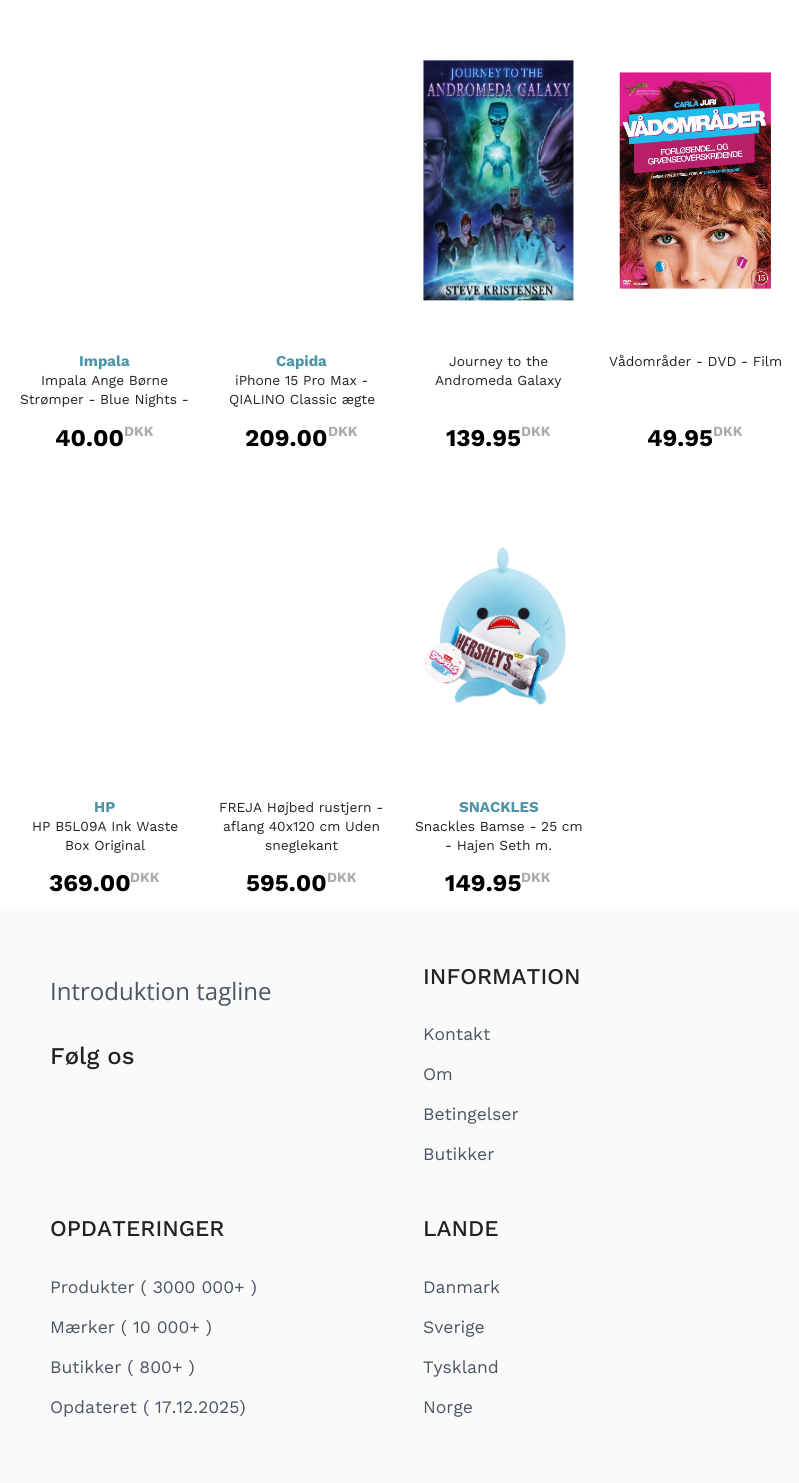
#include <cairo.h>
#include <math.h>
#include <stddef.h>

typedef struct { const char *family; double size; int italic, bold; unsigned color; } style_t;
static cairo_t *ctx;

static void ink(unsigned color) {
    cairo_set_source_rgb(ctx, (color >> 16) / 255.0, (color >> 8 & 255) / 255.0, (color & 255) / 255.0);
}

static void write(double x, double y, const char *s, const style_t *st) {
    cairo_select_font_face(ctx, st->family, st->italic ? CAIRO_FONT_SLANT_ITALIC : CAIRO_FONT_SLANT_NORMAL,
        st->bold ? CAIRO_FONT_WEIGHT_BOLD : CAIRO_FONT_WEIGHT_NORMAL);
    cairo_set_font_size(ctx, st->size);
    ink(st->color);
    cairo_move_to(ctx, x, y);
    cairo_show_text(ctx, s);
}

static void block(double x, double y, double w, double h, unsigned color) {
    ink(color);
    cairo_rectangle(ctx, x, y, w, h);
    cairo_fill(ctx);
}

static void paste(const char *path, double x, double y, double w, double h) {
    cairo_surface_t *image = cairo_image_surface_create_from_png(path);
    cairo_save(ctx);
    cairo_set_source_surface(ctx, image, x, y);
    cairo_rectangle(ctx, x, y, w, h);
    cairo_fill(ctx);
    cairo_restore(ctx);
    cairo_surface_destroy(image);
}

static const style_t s1 = {"Work Sans", 15, 0, 1, 0x4d95a6};
static const style_t s2 = {"Work Sans", 13.75, 0, 0, 0x222222};
static const style_t s3 = {"Work Sans", 24, 0, 1, 0x000000};
static const style_t s4 = {"Work Sans", 14, 0, 1, 0xaeadaa};
static const style_t s5 = {"Open Sans", 24, 0, 0, 0x4b5563};
static const style_t s6 = {"Work Sans Medium", 24, 0, 0, 0x222222};
static const style_t s7 = {"Work Sans Medium", 22.5, 0, 0, 0x222222};
static const style_t s8 = {"Work Sans", 17.5, 0, 0, 0x4b5563};

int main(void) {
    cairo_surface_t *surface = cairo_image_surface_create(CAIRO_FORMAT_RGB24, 799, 1483);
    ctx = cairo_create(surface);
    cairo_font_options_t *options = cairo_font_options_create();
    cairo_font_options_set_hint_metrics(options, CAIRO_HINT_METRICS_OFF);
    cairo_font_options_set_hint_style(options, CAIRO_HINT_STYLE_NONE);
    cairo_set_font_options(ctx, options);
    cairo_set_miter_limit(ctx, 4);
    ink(0xffffff);
    cairo_paint(ctx);
    write(79, 366, "Impala", &s1);
    write(41, 385, "Impala Ange Børne", &s2);
    write(20, 404, "Strømper - Blue Nights -", &s2);
    write(55, 446, "40.00", &s3);
    write(124, 436, "DKK", &s4);
    write(276, 366, "Capida", &s1);
    write(235, 385, "iPhone 15 Pro Max -", &s2);
    write(229, 404, "QIALINO Classic ægte", &s2);
    write(245, 446, "209.00", &s3);
    write(328, 436, "DKK", &s4);
    paste("pic1.png", 423, 60, 151, 241);
    write(449, 366, "Journey to the", &s2);
    write(435, 385, "Andromeda Galaxy", &s2);
    write(446, 446, "139.95", &s3);
    write(521, 436, "DKK", &s4);
    paste("pic2.png", 619, 72, 152, 217);
    write(609, 366, "Vådområder - DVD - Film", &s2);
    write(647, 446, "49.95", &s3);
    write(713, 436, "DKK", &s4);
    write(94, 812, "HP", &s1);
    write(32, 831, "HP B5L09A Ink Waste", &s2);
    write(65, 850, "Box Original", &s2);
    write(49, 891, "369.00", &s3);
    write(130, 882, "DKK", &s4);
    write(219, 812, "FREJA Højbed rustjern -", &s2);
    write(223, 831, "aflang 40x120 cm Uden", &s2);
    write(265, 850, "sneglekant", &s2);
    write(246, 891, "595.00", &s3);
    write(327, 882, "DKK", &s4);
    paste("pic3.png", 424, 547, 142, 158);
    write(459, 812, "SNACKLES", &s1);
    write(415, 831, "Snackles Bamse - 25 cm", &s2);
    write(445, 850, "- Hajen Seth m.", &s2);
    write(445, 891, "149.95", &s3);
    write(521, 882, "DKK", &s4);
    block(0, 909, 799, 574, 0xfafafa);
    write(50, 1000, "Introduktion tagline", &s5);
    write(50, 1064, "Følg os", &s6);
    write(423, 984, "INFORMATION", &s7);
    write(423, 1040, "Kontakt", &s8);
    write(423, 1080, "Om", &s8);
    write(423, 1120, "Betingelser", &s8);
    write(423, 1160, "Butikker", &s8);
    write(50, 1236, "OPDATERINGER", &s7);
    write(50, 1293, "Produkter ( 3000 000+ )", &s8);
    write(50, 1333, "Mærker ( 10 000+ )", &s8);
    write(50, 1373, "Butikker ( 800+ )", &s8);
    write(50, 1413, "Opdateret ( 17.12.2025)", &s8);
    write(423, 1236, "LANDE", &s7);
    write(423, 1293, "Danmark", &s8);
    write(423, 1333, "Sverige", &s8);
    write(423, 1373, "Tyskland", &s8);
    write(423, 1413, "Norge", &s8);
    cairo_surface_write_to_png(surface, "screenshot.png");
    cairo_font_options_destroy(options);
    cairo_destroy(ctx);
    cairo_surface_destroy(surface);
    return 0;
}
